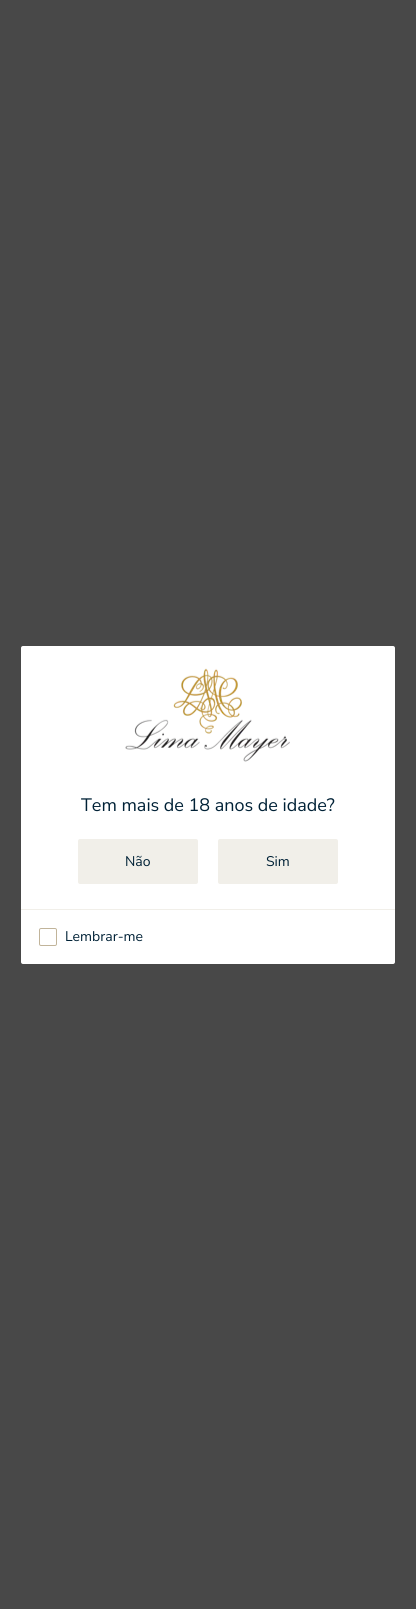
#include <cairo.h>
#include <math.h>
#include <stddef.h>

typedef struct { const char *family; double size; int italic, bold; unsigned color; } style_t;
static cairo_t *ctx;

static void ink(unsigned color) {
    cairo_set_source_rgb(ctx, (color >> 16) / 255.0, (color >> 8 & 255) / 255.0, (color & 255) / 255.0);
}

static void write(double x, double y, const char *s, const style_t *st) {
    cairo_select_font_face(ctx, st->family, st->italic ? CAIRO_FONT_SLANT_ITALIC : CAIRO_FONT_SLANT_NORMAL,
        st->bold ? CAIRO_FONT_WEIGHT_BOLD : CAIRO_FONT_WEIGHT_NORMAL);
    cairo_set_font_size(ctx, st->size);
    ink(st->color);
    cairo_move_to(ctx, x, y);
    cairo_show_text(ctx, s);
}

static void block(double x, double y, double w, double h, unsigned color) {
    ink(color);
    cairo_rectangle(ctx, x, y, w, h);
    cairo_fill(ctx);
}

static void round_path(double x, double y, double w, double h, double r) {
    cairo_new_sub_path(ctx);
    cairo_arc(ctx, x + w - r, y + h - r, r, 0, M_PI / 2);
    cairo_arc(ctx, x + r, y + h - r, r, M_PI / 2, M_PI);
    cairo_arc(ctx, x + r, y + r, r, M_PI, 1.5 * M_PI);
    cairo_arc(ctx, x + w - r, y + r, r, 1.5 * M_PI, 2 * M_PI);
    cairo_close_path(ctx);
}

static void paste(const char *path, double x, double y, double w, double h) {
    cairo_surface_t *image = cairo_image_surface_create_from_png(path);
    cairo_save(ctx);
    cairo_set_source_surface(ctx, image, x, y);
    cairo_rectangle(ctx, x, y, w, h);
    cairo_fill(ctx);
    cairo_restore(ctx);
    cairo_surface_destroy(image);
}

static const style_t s1 = {"Nunito Sans", 18, 0, 0, 0x002136};
static const style_t s2 = {"Nunito Sans", 14, 0, 0, 0x002136};

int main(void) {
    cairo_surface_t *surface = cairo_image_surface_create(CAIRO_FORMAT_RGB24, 416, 1609);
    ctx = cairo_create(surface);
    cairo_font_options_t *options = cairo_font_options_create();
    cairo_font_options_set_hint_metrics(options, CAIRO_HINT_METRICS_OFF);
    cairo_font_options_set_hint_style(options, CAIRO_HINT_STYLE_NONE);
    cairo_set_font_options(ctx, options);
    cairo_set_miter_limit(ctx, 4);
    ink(0x484848);
    cairo_paint(ctx);
    ink(0xffffff);
    round_path(21, 646, 374, 318, 2);
    cairo_fill(ctx);
    paste("pic1.png", 125, 668, 165, 94);
    write(81, 811, "Tem mais de 18 anos de idade?", &s1);
    ink(0xf1efe9);
    round_path(78, 839, 120, 45, 2);
    cairo_fill(ctx);
    write(125, 866, "Não", &s2);
    ink(0xf1efe9);
    round_path(218, 839, 120, 45, 2);
    cairo_fill(ctx);
    write(266, 866, "Sim", &s2);
    block(21, 909, 374, 1, 0xf1efe9);
    round_path(39.5, 928.5, 17, 17, 1.5);
    ink(0xc1b49a);
    cairo_set_line_width(ctx, 1);
    cairo_stroke(ctx);
    write(65, 941, "Lembrar-me", &s2);
    cairo_surface_write_to_png(surface, "screenshot.png");
    cairo_font_options_destroy(options);
    cairo_destroy(ctx);
    cairo_surface_destroy(surface);
    return 0;
}
